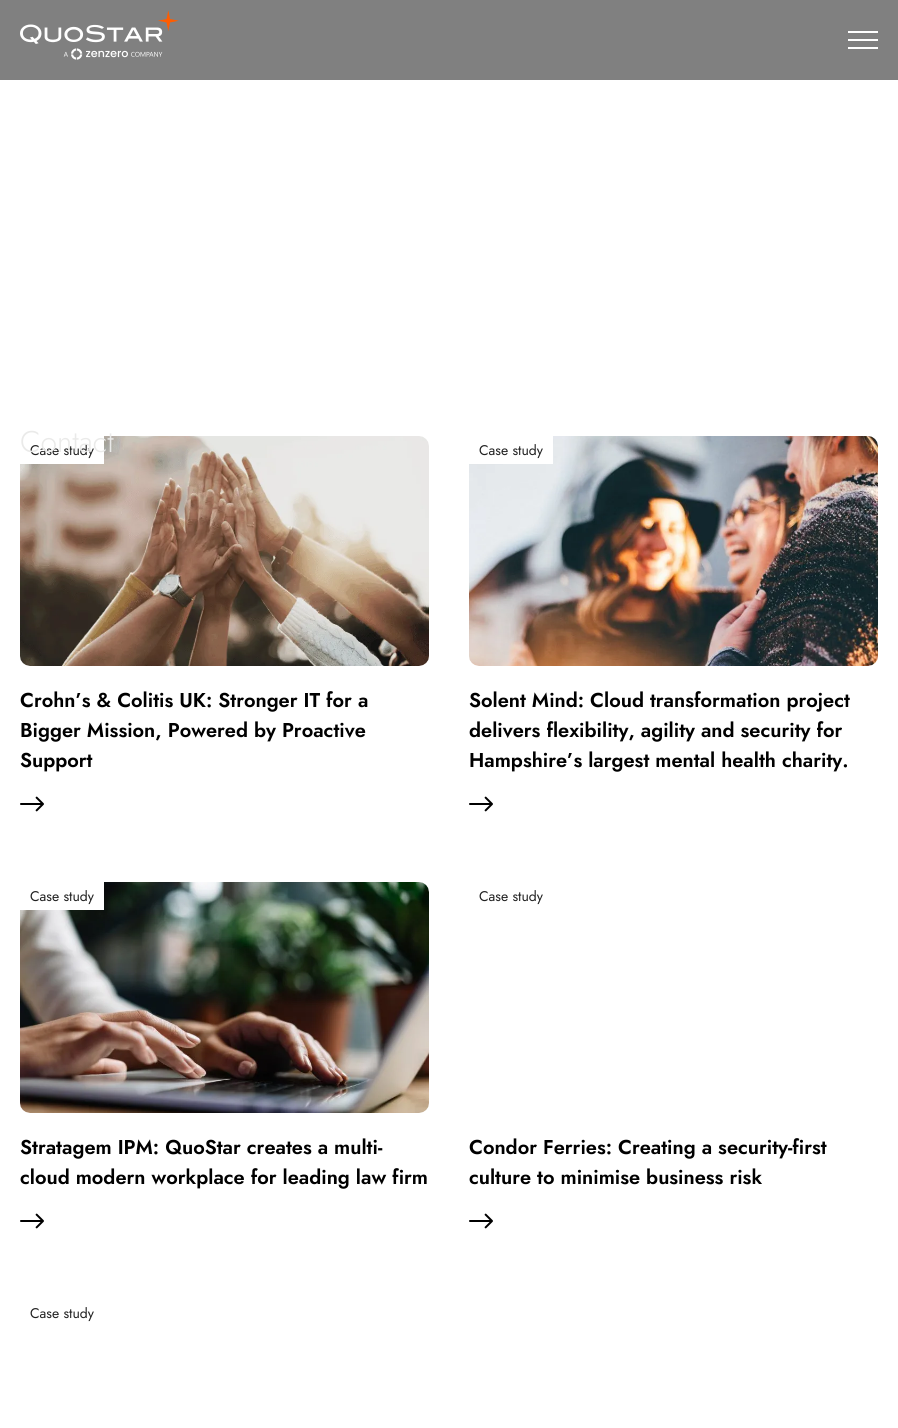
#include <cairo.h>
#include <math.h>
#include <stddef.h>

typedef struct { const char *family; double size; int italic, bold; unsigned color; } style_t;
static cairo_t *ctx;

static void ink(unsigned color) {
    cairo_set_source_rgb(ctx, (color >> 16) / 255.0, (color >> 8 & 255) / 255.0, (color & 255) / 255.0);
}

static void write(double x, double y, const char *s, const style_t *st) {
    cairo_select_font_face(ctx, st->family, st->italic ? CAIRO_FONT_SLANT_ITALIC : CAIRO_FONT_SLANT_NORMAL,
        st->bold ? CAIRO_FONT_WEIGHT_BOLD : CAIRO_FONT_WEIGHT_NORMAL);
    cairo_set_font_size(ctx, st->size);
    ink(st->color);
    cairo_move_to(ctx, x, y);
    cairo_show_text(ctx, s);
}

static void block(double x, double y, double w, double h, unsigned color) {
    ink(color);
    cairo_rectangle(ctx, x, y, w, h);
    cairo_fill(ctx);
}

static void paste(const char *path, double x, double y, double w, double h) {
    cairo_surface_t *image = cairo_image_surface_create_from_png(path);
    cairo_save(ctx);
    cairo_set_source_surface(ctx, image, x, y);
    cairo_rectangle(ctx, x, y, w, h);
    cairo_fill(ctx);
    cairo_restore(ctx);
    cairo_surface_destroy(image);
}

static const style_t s1 = {"Jost", 14, 0, 0, 0x212121};
static const style_t s2 = {"Jost Light", 30, 0, 0, 0xeaeae9};
static const style_t s3 = {"Jost SemiBold", 20, 0, 0, 0x000000};

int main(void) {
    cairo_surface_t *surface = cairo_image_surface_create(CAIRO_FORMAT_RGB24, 898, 1428);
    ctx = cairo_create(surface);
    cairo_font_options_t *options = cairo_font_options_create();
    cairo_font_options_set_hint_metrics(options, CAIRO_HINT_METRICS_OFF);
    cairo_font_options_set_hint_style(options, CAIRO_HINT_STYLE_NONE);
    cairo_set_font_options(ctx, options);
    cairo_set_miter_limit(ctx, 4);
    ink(0xffffff);
    cairo_paint(ctx);
    block(0, 0, 898, 80, 0x808080);
    paste("pic1.png", 20, 10, 159, 50);
    block(848, 31, 30, 2, 0xffffff);
    block(848, 39, 30, 2, 0xffffff);
    block(848, 47, 30, 2, 0xffffff);
    paste("pic2.png", 20, 436, 409, 230);
    block(20, 436, 84, 28, 0xffffff);
    write(30, 455, "Case study", &s1);
    write(20, 452, "Contact", &s2);
    write(20, 707, "Crohn’s & Colitis UK: Stronger IT for a", &s3);
    write(20, 737, "Bigger Mission, Powered by Proactive", &s3);
    write(20, 767, "Support", &s3);
    paste("pic3.png", 20, 796, 24, 16);
    paste("pic4.png", 469, 436, 409, 230);
    block(469, 436, 84, 28, 0xffffff);
    write(479, 455, "Case study", &s1);
    write(469, 707, "Solent Mind: Cloud transformation project", &s3);
    write(469, 737, "delivers flexibility, agility and security for", &s3);
    write(469, 767, "Hampshire’s largest mental health charity.", &s3);
    paste("pic3.png", 469, 796, 24, 16);
    paste("pic5.png", 20, 882, 409, 231);
    block(20, 882, 84, 28, 0xffffff);
    write(30, 901, "Case study", &s1);
    write(20, 1154, "Stratagem IPM: QuoStar creates a multi-", &s3);
    write(20, 1184, "cloud modern workplace for leading law firm", &s3);
    paste("pic3.png", 20, 1213, 24, 16);
    write(479, 901, "Case study", &s1);
    write(469, 1154, "Condor Ferries: Creating a security-first", &s3);
    write(469, 1184, "culture to minimise business risk", &s3);
    paste("pic3.png", 469, 1213, 24, 16);
    write(30, 1318, "Case study", &s1);
    cairo_surface_write_to_png(surface, "screenshot.png");
    cairo_font_options_destroy(options);
    cairo_destroy(ctx);
    cairo_surface_destroy(surface);
    return 0;
}
